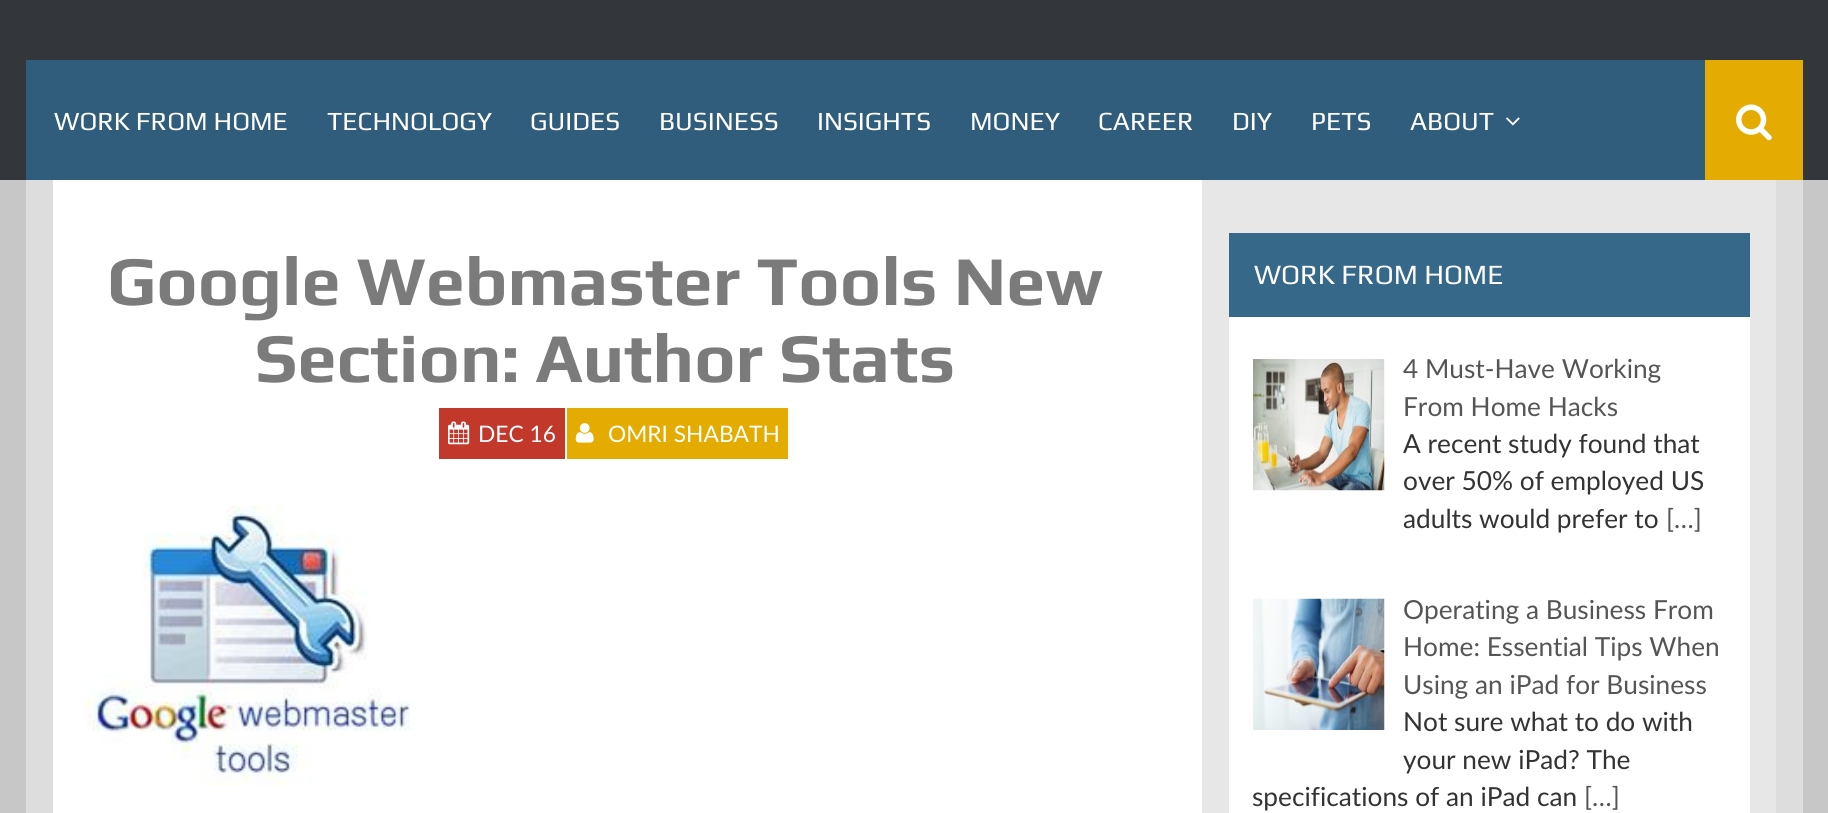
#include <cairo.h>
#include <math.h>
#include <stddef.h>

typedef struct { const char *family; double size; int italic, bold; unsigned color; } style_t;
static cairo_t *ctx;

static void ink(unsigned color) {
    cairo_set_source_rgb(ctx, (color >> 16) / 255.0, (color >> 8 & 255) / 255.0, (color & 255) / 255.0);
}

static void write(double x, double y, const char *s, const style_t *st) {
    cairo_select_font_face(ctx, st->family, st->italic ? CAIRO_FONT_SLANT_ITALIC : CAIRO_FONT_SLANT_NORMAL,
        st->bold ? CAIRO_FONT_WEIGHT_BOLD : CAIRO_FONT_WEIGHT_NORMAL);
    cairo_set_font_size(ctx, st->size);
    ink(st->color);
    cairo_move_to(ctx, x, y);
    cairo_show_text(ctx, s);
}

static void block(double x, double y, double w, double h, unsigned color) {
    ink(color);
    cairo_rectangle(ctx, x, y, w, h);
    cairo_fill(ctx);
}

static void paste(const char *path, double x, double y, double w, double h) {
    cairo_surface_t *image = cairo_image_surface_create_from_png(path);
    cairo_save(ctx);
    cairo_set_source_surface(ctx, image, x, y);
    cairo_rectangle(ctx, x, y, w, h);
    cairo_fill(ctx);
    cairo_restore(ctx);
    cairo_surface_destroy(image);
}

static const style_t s1 = {"Play", 26.25, 0, 0, 0xffffff};
static const style_t s2 = {"Play", 70, 0, 1, 0x7b7b7b};
static const style_t s3 = {"Lato", 22.75, 0, 0, 0xffffff};
static const style_t s4 = {"Play", 28, 0, 0, 0xffffff};
static const style_t s5 = {"Lato", 26.25, 0, 0, 0x555555};
static const style_t s6 = {"Lato", 26.25, 0, 0, 0x333333};

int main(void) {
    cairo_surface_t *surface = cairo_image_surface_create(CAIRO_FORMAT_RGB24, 1828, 813);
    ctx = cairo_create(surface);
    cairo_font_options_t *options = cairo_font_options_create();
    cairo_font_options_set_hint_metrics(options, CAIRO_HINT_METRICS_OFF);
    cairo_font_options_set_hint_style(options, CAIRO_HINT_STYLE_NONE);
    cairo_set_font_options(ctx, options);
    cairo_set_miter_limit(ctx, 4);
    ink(0xdddddd);
    cairo_paint(ctx);
    block(0, 0, 1828, 60, 0x33363b);
    block(26, 60, 1679, 120, 0x305d7b);
    block(1803, 60, 25, 120, 0x33363b);
    block(0, 60, 26, 120, 0x33363b);
    write(54, 130, "WORK FROM HOME", &s1);
    write(327, 130, "TECHNOLOGY", &s1);
    write(530, 130, "GUIDES", &s1);
    write(659, 130, "BUSINESS", &s1);
    write(817, 130, "INSIGHTS", &s1);
    write(970, 130, "MONEY", &s1);
    write(1098, 130, "CAREER", &s1);
    write(1232, 130, "DIY", &s1);
    write(1311, 130, "PETS", &s1);
    write(1410, 130, "ABOUT", &s1);
    paste("pic1.png", 1506, 117, 14, 9);
    block(1705, 60, 98, 120, 0xe4ab01);
    paste("pic2.png", 1736, 104, 36, 37);
    block(1803, 180, 25, 633, 0xc7c7c7);
    block(0, 180, 26, 633, 0xc7c7c7);
    block(53, 180, 1149, 633, 0xffffff);
    write(107, 305, "Google Webmaster Tools New", &s2);
    write(255, 382, "Section: Author Stats", &s2);
    block(439, 408, 126, 51, 0xc2382b);
    paste("pic3.png", 448, 421, 22, 24);
    write(478, 442, "DEC 16", &s3);
    block(567, 408, 221, 51, 0xe4ab01);
    paste("pic4.png", 575, 423, 19, 20);
    write(608, 442, "OMRI SHABATH", &s3);
    paste("pic5.png", 87, 506, 330, 280);
    block(1202, 180, 574, 633, 0xe7e7e7);
    block(1229, 317, 521, 496, 0xffffff);
    block(1229, 233, 521, 84, 0x36688a);
    write(1254, 284, "WORK FROM HOME", &s4);
    paste("pic6.png", 1253, 359, 132, 132);
    write(1403, 378, "4 Must-Have Working", &s5);
    write(1403, 416, "From Home Hacks", &s5);
    write(1403, 453, "A recent study found that", &s6);
    write(1403, 490, "over 50% of employed US", &s6);
    write(1403, 528, "adults would prefer to", &s6);
    write(1666, 528, "[…]", &s5);
    paste("pic7.png", 1253, 598, 132, 132);
    write(1403, 619, "Operating a Business From", &s5);
    write(1403, 656, "Home: Essential Tips When", &s5);
    write(1403, 694, "Using an iPad for Business", &s5);
    write(1403, 731, "Not sure what to do with", &s6);
    write(1403, 769, "your new iPad? The", &s6);
    write(1252, 806, "specifications of an iPad can", &s6);
    write(1584, 806, "[…]", &s5);
    cairo_surface_write_to_png(surface, "screenshot.png");
    cairo_font_options_destroy(options);
    cairo_destroy(ctx);
    cairo_surface_destroy(surface);
    return 0;
}
